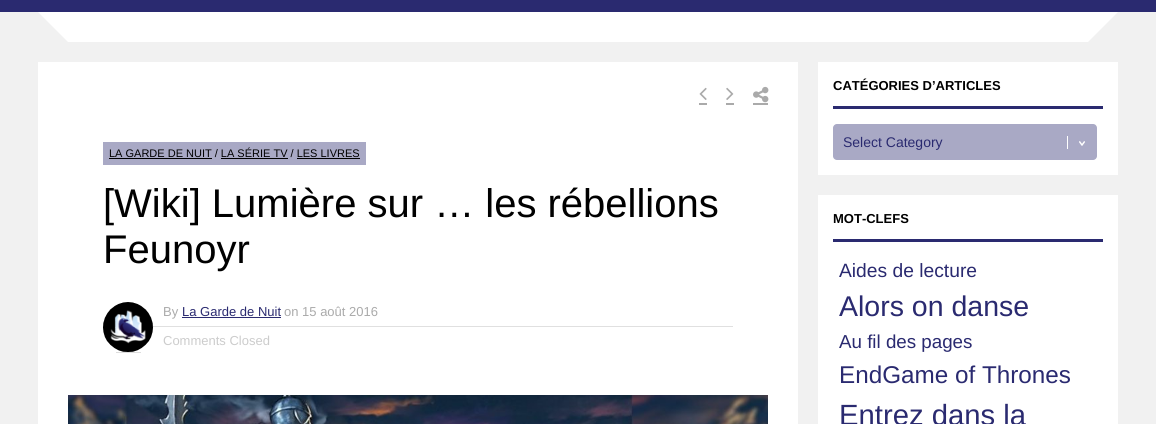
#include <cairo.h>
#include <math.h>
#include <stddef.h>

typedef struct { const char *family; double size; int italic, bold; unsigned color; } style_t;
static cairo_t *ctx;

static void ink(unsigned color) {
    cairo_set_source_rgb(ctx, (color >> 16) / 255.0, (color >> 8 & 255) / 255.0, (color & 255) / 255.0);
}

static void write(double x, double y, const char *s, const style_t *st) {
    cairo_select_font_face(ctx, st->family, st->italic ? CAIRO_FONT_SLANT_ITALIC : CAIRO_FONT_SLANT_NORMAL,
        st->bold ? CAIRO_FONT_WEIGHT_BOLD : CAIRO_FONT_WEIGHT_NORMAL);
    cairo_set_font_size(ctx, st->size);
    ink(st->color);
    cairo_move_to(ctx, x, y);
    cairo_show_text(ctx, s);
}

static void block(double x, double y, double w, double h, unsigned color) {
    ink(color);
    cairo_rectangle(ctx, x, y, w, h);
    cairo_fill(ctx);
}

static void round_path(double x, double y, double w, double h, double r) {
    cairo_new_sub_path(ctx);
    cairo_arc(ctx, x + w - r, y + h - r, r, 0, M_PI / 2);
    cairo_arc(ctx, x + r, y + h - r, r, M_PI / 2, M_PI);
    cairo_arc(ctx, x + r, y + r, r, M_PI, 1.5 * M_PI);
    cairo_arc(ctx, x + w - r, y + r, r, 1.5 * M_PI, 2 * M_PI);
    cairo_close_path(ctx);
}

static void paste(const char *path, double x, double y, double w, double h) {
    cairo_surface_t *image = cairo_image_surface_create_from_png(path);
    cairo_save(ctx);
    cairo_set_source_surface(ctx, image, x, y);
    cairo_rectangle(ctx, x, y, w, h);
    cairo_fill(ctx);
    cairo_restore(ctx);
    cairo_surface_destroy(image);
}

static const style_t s1 = {"Liberation Sans", 11, 0, 0, 0x000000};
static const style_t s2 = {"Liberation Sans", 40, 0, 0, 0x000000};
static const style_t s3 = {"Liberation Sans", 13, 0, 0, 0xaaaaaa};
static const style_t s4 = {"Liberation Sans", 13, 0, 0, 0x2a2a70};
static const style_t s5 = {"Liberation Sans", 13, 0, 0, 0xcccccc};
static const style_t s6 = {"Liberation Sans", 13, 0, 1, 0x000000};
static const style_t s7 = {"Liberation Sans", 14, 0, 0, 0x2a2a70};
static const style_t s8 = {"Liberation Sans", 19.25, 0, 0, 0x2a2a70};
static const style_t s9 = {"Liberation Sans", 28.5, 0, 0, 0x2a2a70};
static const style_t s10 = {"Liberation Sans", 18.75, 0, 0, 0x2a2a70};
static const style_t s11 = {"Liberation Sans", 24.25, 0, 0, 0x2a2a70};
static const style_t s12 = {"Liberation Sans", 29.25, 0, 0, 0x2a2a70};

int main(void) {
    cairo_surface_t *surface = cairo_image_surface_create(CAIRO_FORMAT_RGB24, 1156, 424);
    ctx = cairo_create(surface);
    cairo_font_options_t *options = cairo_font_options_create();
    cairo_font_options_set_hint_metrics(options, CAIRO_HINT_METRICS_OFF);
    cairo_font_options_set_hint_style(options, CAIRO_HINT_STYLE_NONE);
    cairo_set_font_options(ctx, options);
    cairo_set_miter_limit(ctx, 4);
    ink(0xf1f1f1);
    cairo_paint(ctx);
    block(0, 0, 1156, 12, 0x2a2a70);
    block(38, 12, 1080, 30, 0xffffff);
    ink(0xf1f1f1);
    cairo_new_path(ctx);
    cairo_move_to(ctx, 38, 42);
    cairo_line_to(ctx, 38, 12);
    cairo_line_to(ctx, 68, 42);
    cairo_close_path(ctx);
    cairo_fill(ctx);
    cairo_new_path(ctx);
    cairo_move_to(ctx, 1118, 42);
    cairo_line_to(ctx, 1088, 42);
    cairo_line_to(ctx, 1118, 12);
    cairo_close_path(ctx);
    cairo_fill(ctx);
    block(38, 62, 760, 362, 0xffffff);
    paste("pic1.png", 699, 87, 8, 13);
    block(699, 103, 8, 2, 0xaaaaaa);
    paste("pic2.png", 726, 87, 8, 13);
    block(726, 103, 8, 2, 0xaaaaaa);
    paste("pic3.png", 753, 86, 16, 17);
    block(753, 103, 15, 2, 0xaaaaaa);
    block(103, 142, 263, 23, 0xa9a9c5);
    write(109, 157, "LA GARDE DE NUIT / LA SÉRIE TV / LES LIVRES", &s1);
    block(109, 158, 103, 1, 0x000000);
    block(221, 158, 67, 1, 0x000000);
    block(297, 158, 63, 1, 0x000000);
    write(103, 217, "[Wiki] Lumière sur … les rébellions", &s2);
    write(103, 263, "Feunoyr", &s2);
    paste("pic4.png", 103, 302, 50, 50);
    block(116, 352, 25, 1, 0xdddddd);
    block(153, 326, 580, 1, 0xe0e0e0);
    write(163, 316, "By", &s3);
    block(182, 317, 99, 1, 0x2a2a70);
    write(182, 316, "La Garde de Nuit", &s4);
    write(284, 316, "on 15 août 2016", &s3);
    write(163, 345, "Comments Closed", &s5);
    paste("pic5.png", 68, 395, 700, 29);
    block(818, 62, 300, 113, 0xffffff);
    block(833, 106, 270, 3, 0x2a2a70);
    write(833, 90, "CATÉGORIES D’ARTICLES", &s6);
    ink(0xa9a9c5);
    round_path(833, 124, 264, 36, 4);
    cairo_fill(ctx);
    paste("pic6.png", 1067, 136, 18, 13);
    write(843, 147, "Select Category", &s7);
    block(818, 195, 300, 229, 0xffffff);
    block(833, 239, 270, 3, 0x2a2a70);
    write(833, 223, "MOT-CLEFS", &s6);
    write(839, 277, "Aides de lecture", &s8);
    write(839, 316, "Alors on danse", &s9);
    write(839, 348, "Au fil des pages", &s10);
    write(839, 383, "EndGame of Thrones", &s11);
    write(839, 425, "Entrez dans la", &s12);
    cairo_surface_write_to_png(surface, "screenshot.png");
    cairo_font_options_destroy(options);
    cairo_destroy(ctx);
    cairo_surface_destroy(surface);
    return 0;
}
